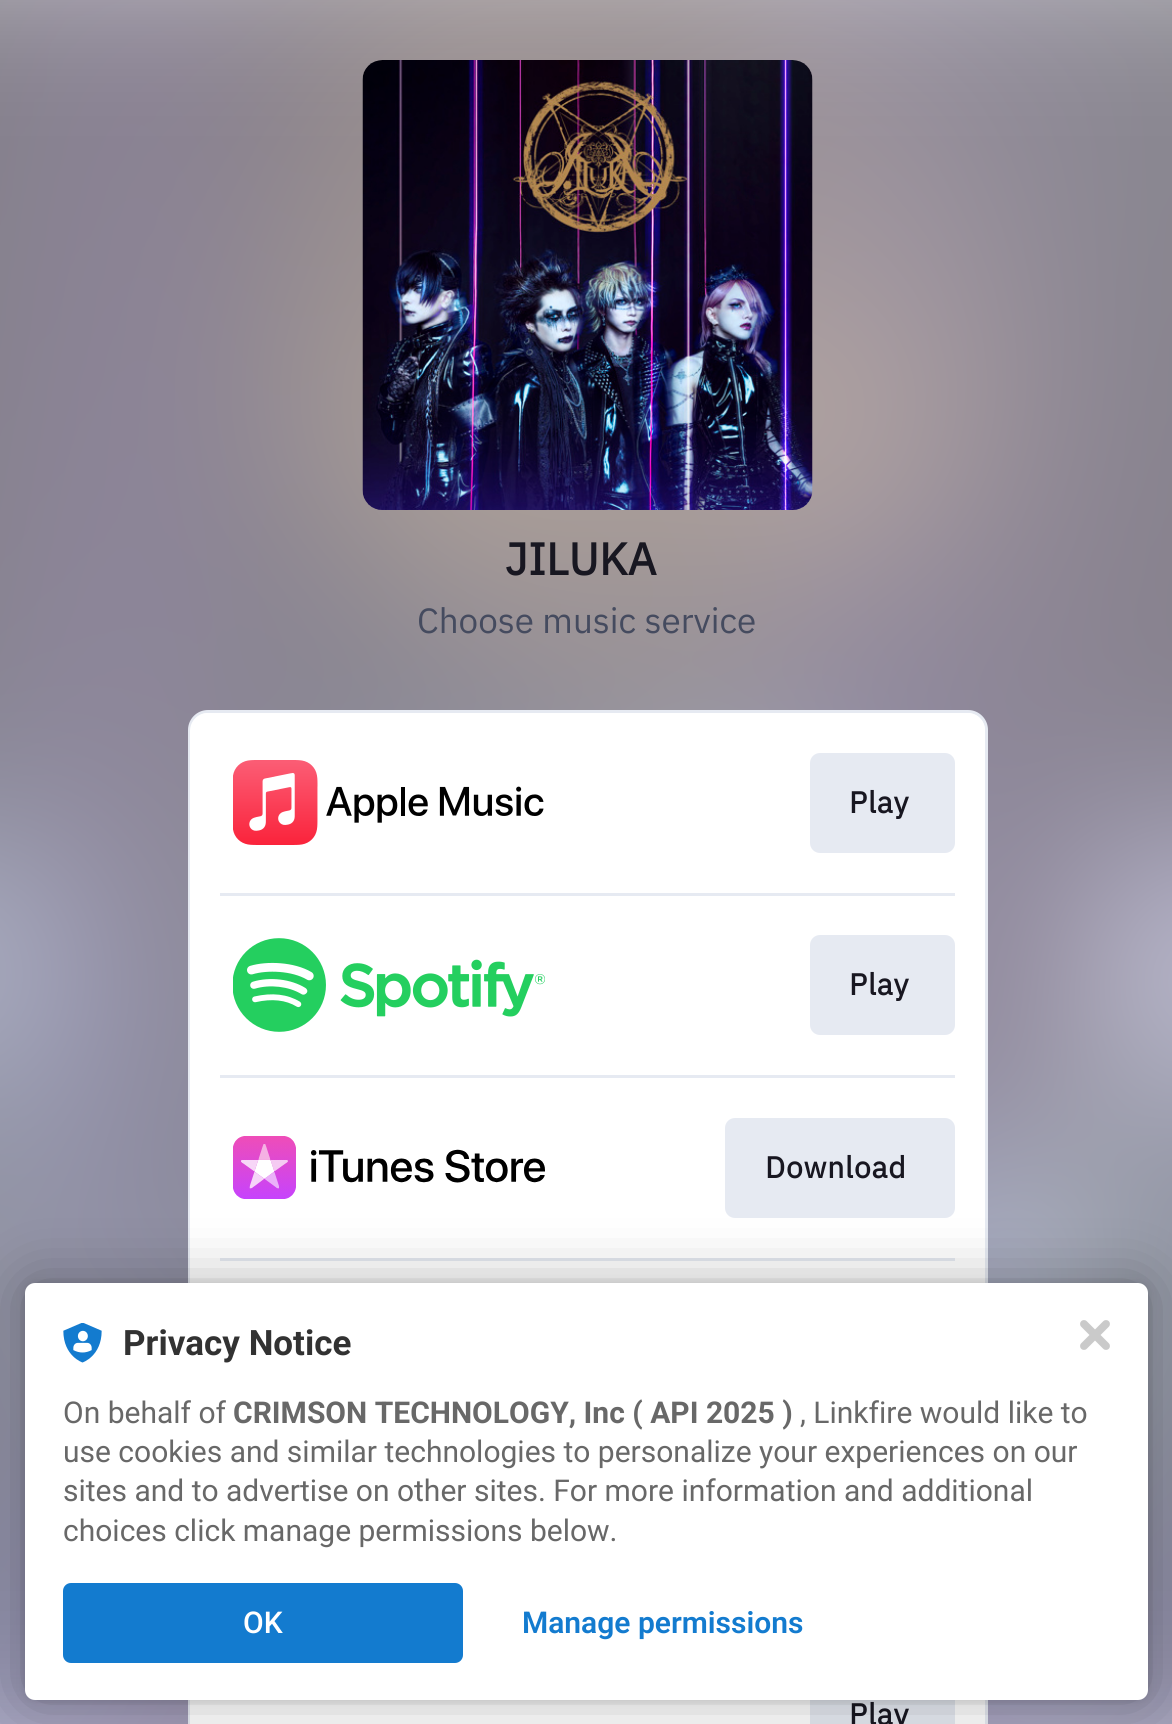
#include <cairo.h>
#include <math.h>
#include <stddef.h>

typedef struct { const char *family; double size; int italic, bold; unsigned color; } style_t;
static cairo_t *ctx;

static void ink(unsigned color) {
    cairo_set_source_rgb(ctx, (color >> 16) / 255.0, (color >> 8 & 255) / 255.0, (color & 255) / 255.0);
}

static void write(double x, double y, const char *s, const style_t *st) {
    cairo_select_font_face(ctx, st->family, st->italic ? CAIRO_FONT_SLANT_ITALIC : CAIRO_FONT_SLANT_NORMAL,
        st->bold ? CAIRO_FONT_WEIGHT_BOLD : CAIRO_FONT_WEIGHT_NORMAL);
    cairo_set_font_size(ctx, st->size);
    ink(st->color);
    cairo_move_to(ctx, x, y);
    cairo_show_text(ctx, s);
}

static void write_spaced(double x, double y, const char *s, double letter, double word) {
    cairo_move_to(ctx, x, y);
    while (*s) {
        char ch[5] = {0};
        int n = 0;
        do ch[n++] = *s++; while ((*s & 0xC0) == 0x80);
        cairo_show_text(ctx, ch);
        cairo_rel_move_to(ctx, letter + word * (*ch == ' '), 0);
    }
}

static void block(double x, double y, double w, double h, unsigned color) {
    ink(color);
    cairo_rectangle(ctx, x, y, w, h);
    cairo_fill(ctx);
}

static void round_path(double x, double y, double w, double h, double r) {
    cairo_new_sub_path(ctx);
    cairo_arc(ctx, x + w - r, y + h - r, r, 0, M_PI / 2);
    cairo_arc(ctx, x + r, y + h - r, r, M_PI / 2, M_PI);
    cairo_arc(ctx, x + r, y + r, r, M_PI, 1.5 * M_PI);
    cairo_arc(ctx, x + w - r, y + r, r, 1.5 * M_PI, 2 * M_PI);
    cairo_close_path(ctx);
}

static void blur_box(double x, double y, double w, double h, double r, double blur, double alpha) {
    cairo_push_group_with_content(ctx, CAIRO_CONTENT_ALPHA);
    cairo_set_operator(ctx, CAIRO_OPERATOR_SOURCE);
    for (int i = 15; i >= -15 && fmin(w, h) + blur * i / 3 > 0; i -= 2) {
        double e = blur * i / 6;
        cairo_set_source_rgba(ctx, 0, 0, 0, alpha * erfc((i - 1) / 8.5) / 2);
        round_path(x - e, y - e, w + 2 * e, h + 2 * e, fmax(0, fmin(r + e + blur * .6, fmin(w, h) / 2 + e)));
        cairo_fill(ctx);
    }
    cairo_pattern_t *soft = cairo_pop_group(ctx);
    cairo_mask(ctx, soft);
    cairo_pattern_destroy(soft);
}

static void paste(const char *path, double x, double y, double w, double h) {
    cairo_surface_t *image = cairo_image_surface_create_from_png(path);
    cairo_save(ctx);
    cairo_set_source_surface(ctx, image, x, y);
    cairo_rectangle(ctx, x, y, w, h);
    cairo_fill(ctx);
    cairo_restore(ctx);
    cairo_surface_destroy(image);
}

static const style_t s1 = {"IBM Plex Sans", 45, 0, 1, 0x181721};
static const style_t s2 = {"IBM Plex Sans", 35, 0, 0, 0x454b5f};
static const style_t s3 = {"Roboto", 35, 0, 1, 0x323232};
static const style_t s4 = {"Roboto", 30, 0, 0, 0x686868};
static const style_t s5 = {"Roboto", 30, 0, 1, 0x686868};
static const style_t s6 = {"Roboto Medium", 30, 0, 0, 0xffffff};
static const style_t s7 = {"Roboto SemiBold", 30, 0, 0, 0x137bcf};

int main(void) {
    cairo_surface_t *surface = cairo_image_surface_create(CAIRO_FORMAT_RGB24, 1172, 1724);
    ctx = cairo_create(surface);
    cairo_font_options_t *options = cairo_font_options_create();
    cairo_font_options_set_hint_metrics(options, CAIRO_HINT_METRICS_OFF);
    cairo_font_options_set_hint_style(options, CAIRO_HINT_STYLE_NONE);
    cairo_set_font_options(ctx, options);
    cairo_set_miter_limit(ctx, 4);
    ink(0xffffff);
    cairo_paint(ctx);
    paste("pic1.png", 0, 0, 1172, 1724);
    paste("pic2.png", 362, 60, 451, 450);
    write(505, 575, "JILUKA", &s1);
    write(417, 633, "Choose music service", &s2);
    ink(0xffffff);
    round_path(189.5, 711.5, 797, 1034, 18.5);
    cairo_fill_preserve(ctx);
    ink(0xe6eaf2);
    cairo_set_line_width(ctx, 3);
    cairo_stroke(ctx);
    ink(0xffffff);
    round_path(190, 713, 795, 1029, 18);
    cairo_fill(ctx);
    paste("pic3.png", 233, 760, 311, 85);
    ink(0xe6eaf2);
    round_path(810, 753, 145, 100, 10);
    cairo_fill(ctx);
    cairo_select_font_face(ctx, "IBM Plex Sans", CAIRO_FONT_SLANT_NORMAL, CAIRO_FONT_WEIGHT_BOLD);
    cairo_set_font_size(ctx, 30);
    ink(0x181721);
    write_spaced(849, 813, "Play", 0.75, 0);
    block(220, 893, 735, 3, 0xe6eaf2);
    paste("pic4.png", 233, 938, 312, 94);
    round_path(810, 935, 145, 100, 10);
    cairo_fill(ctx);
    ink(0x181721);
    write_spaced(849, 995, "Play", 0.75, 0);
    block(220, 1075, 735, 3, 0xe6eaf2);
    paste("pic5.png", 233, 1136, 312, 63);
    round_path(725, 1118, 230, 100, 10);
    cairo_fill(ctx);
    ink(0x181721);
    write_spaced(765, 1178, "Download", 0.75, 0);
    block(220, 1258, 735, 3, 0xe6eaf2);
    block(810, 1700, 145, 24, 0xe6eaf2);
    ink(0x181721);
    write_spaced(849, 1725, "Play", 0.75, 0);
    ink(0x000000);
    blur_box(25, 1283, 1123, 417, 10, 5, 0.12);
    blur_box(25, 1283, 1123, 417, 10, 30, 0.3);
    ink(0xffffff);
    round_path(25, 1283, 1123, 417, 10);
    cairo_fill(ctx);
    paste("pic6.png", 63, 1323, 39, 40);
    write(123, 1355, "Privacy Notice", &s3);
    write(63, 1423, "On behalf of", &s4);
    write(233, 1423, "CRIMSON TECHNOLOGY, Inc ( API 2025 )", &s5);
    write(800, 1423, ", Linkfire would like to", &s4);
    write(63, 1462, "use cookies and similar technologies to personalize your experiences on our", &s4);
    write(63, 1501, "sites and to advertise on other sites. For more information and additional", &s4);
    write(63, 1541, "choices click manage permissions below.", &s4);
    ink(0x137bcf);
    round_path(63, 1583, 400, 80, 8);
    cairo_fill(ctx);
    write(243, 1633, "OK", &s6);
    write(522, 1633, "Manage permissions", &s7);
    paste("pic7.png", 1080, 1320, 30, 30);
    cairo_surface_write_to_png(surface, "screenshot.png");
    cairo_font_options_destroy(options);
    cairo_destroy(ctx);
    cairo_surface_destroy(surface);
    return 0;
}
